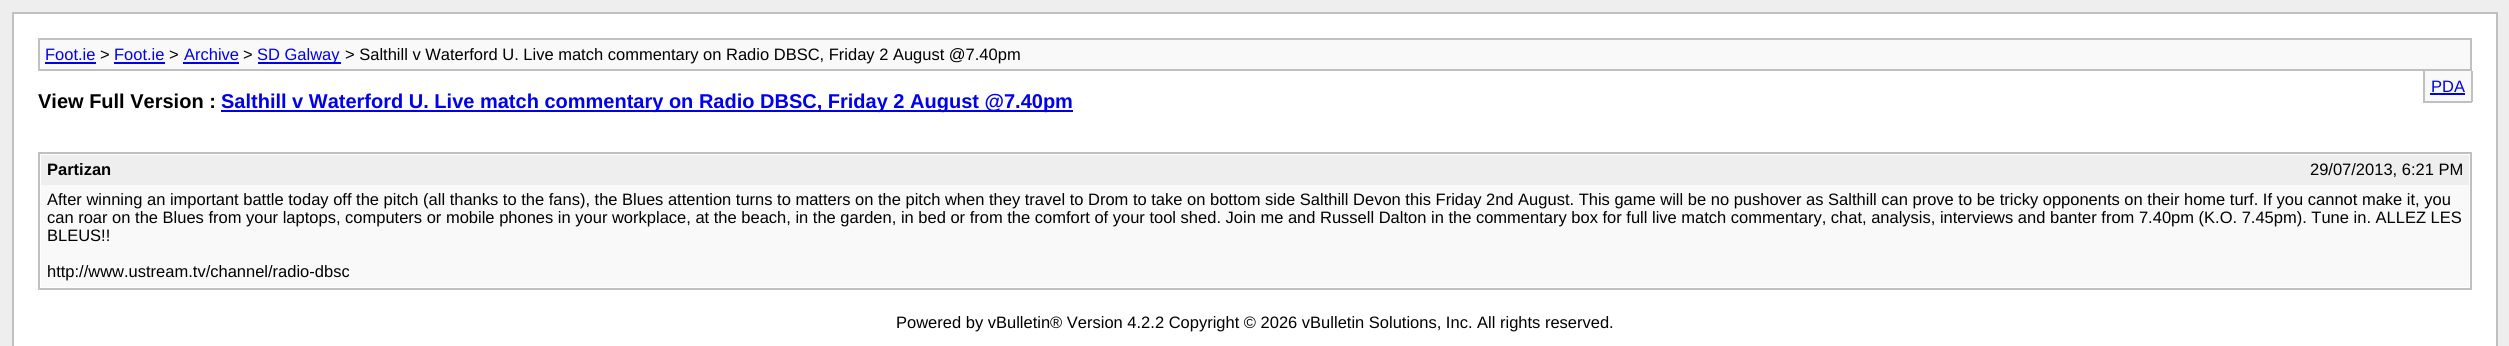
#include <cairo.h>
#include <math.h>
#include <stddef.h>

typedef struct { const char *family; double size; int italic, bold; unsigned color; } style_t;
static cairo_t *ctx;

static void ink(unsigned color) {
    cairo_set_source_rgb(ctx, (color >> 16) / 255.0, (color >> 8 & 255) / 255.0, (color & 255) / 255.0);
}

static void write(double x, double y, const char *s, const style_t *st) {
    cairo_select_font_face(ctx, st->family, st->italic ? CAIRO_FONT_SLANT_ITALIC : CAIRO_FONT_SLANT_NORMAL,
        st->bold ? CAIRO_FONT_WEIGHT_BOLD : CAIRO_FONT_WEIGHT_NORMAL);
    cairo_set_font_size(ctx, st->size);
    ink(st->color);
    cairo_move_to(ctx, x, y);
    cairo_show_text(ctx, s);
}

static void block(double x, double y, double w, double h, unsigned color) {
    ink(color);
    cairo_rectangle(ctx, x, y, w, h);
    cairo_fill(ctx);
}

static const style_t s1 = {"Liberation Sans", 16.5, 0, 0, 0x0000ee};
static const style_t s2 = {"Liberation Sans", 16.5, 0, 0, 0x000000};
static const style_t s3 = {"Liberation Sans", 20, 0, 1, 0x000000};
static const style_t s4 = {"Liberation Sans", 20, 0, 1, 0x0000ee};
static const style_t s5 = {"Liberation Sans", 16.5, 0, 1, 0x000000};

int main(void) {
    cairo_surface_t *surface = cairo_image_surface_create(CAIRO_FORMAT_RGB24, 2509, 346);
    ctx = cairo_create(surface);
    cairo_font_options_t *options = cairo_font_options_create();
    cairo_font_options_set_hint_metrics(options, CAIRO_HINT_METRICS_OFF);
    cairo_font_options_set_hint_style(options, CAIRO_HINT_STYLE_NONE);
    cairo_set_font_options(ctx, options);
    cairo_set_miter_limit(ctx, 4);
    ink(0xeeeeee);
    cairo_paint(ctx);
    ink(0xffffff);
    cairo_rectangle(ctx, 13, 13, 2484, 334);
    cairo_fill_preserve(ctx);
    ink(0xc0c0c0);
    cairo_stroke(ctx);
    ink(0xf9f9f9);
    cairo_rectangle(ctx, 39, 39, 2432, 31);
    cairo_fill_preserve(ctx);
    ink(0xc0c0c0);
    cairo_stroke(ctx);
    write(45, 60, "Foot.ie", &s1);
    block(45, 62, 51, 2, 0x0000ee);
    write(100, 60, ">", &s2);
    write(114, 60, "Foot.ie", &s1);
    block(114, 62, 51, 2, 0x0000ee);
    write(169, 60, ">", &s2);
    write(184, 60, "Archive", &s1);
    block(183, 62, 56, 2, 0x0000ee);
    write(243, 60, ">", &s2);
    block(258, 62, 83, 2, 0x0000ee);
    write(257, 60, "SD Galway", &s1);
    write(345, 60, "> Salthill v Waterford U. Live match commentary on Radio DBSC, Friday 2 August @7.40pm", &s2);
    block(2425, 71, 46, 30, 0xf9f9f9);
    block(2471, 71, 2, 31, 0xc0c0c0);
    block(2423, 101, 49, 2, 0xc0c0c0);
    block(2423, 71, 2, 31, 0xc0c0c0);
    write(2431, 92, "PDA", &s1);
    block(2430, 93, 35, 2, 0x0000ee);
    write(38, 108, "View Full Version :", &s3);
    block(221, 110, 852, 2, 0x0000ee);
    write(221, 108, "Salthill v Waterford U. Live match commentary on Radio DBSC, Friday 2 August @7.40pm", &s4);
    cairo_rectangle(ctx, 39, 153, 2432, 136);
    ink(0xc0c0c0);
    cairo_stroke(ctx);
    block(41, 155, 2428, 30, 0xeeeeee);
    write(47, 175, "Partizan", &s5);
    write(2310, 175, "29/07/2013, 6:21 PM", &s2);
    block(41, 185, 2428, 102, 0xf9f9f9);
    write(47, 205, "After winning an important battle today off the pitch (all thanks to the fans), the Blues attention turns to matters on the pitch when they travel to Drom to take on bottom side Salthill Devon this Friday 2nd August. This game will be no pushover as Salthill can prove to be tricky opponents on their home turf. If you cannot make it, you", &s2);
    write(47, 223, "can roar on the Blues from your laptops, computers or mobile phones in your workplace, at the beach, in the garden, in bed or from the comfort of your tool shed. Join me and Russell Dalton in the commentary box for full live match commentary, chat, analysis, interviews and banter from 7.40pm (K.O. 7.45pm). Tune in. ALLEZ LES", &s2);
    write(47, 241, "BLEUS!!", &s2);
    write(47, 277, "http://www.ustream.tv/channel/radio-dbsc", &s2);
    write(896, 328, "Powered by vBulletin® Version 4.2.2 Copyright © 2026 vBulletin Solutions, Inc. All rights reserved.", &s2);
    cairo_surface_write_to_png(surface, "screenshot.png");
    cairo_font_options_destroy(options);
    cairo_destroy(ctx);
    cairo_surface_destroy(surface);
    return 0;
}
